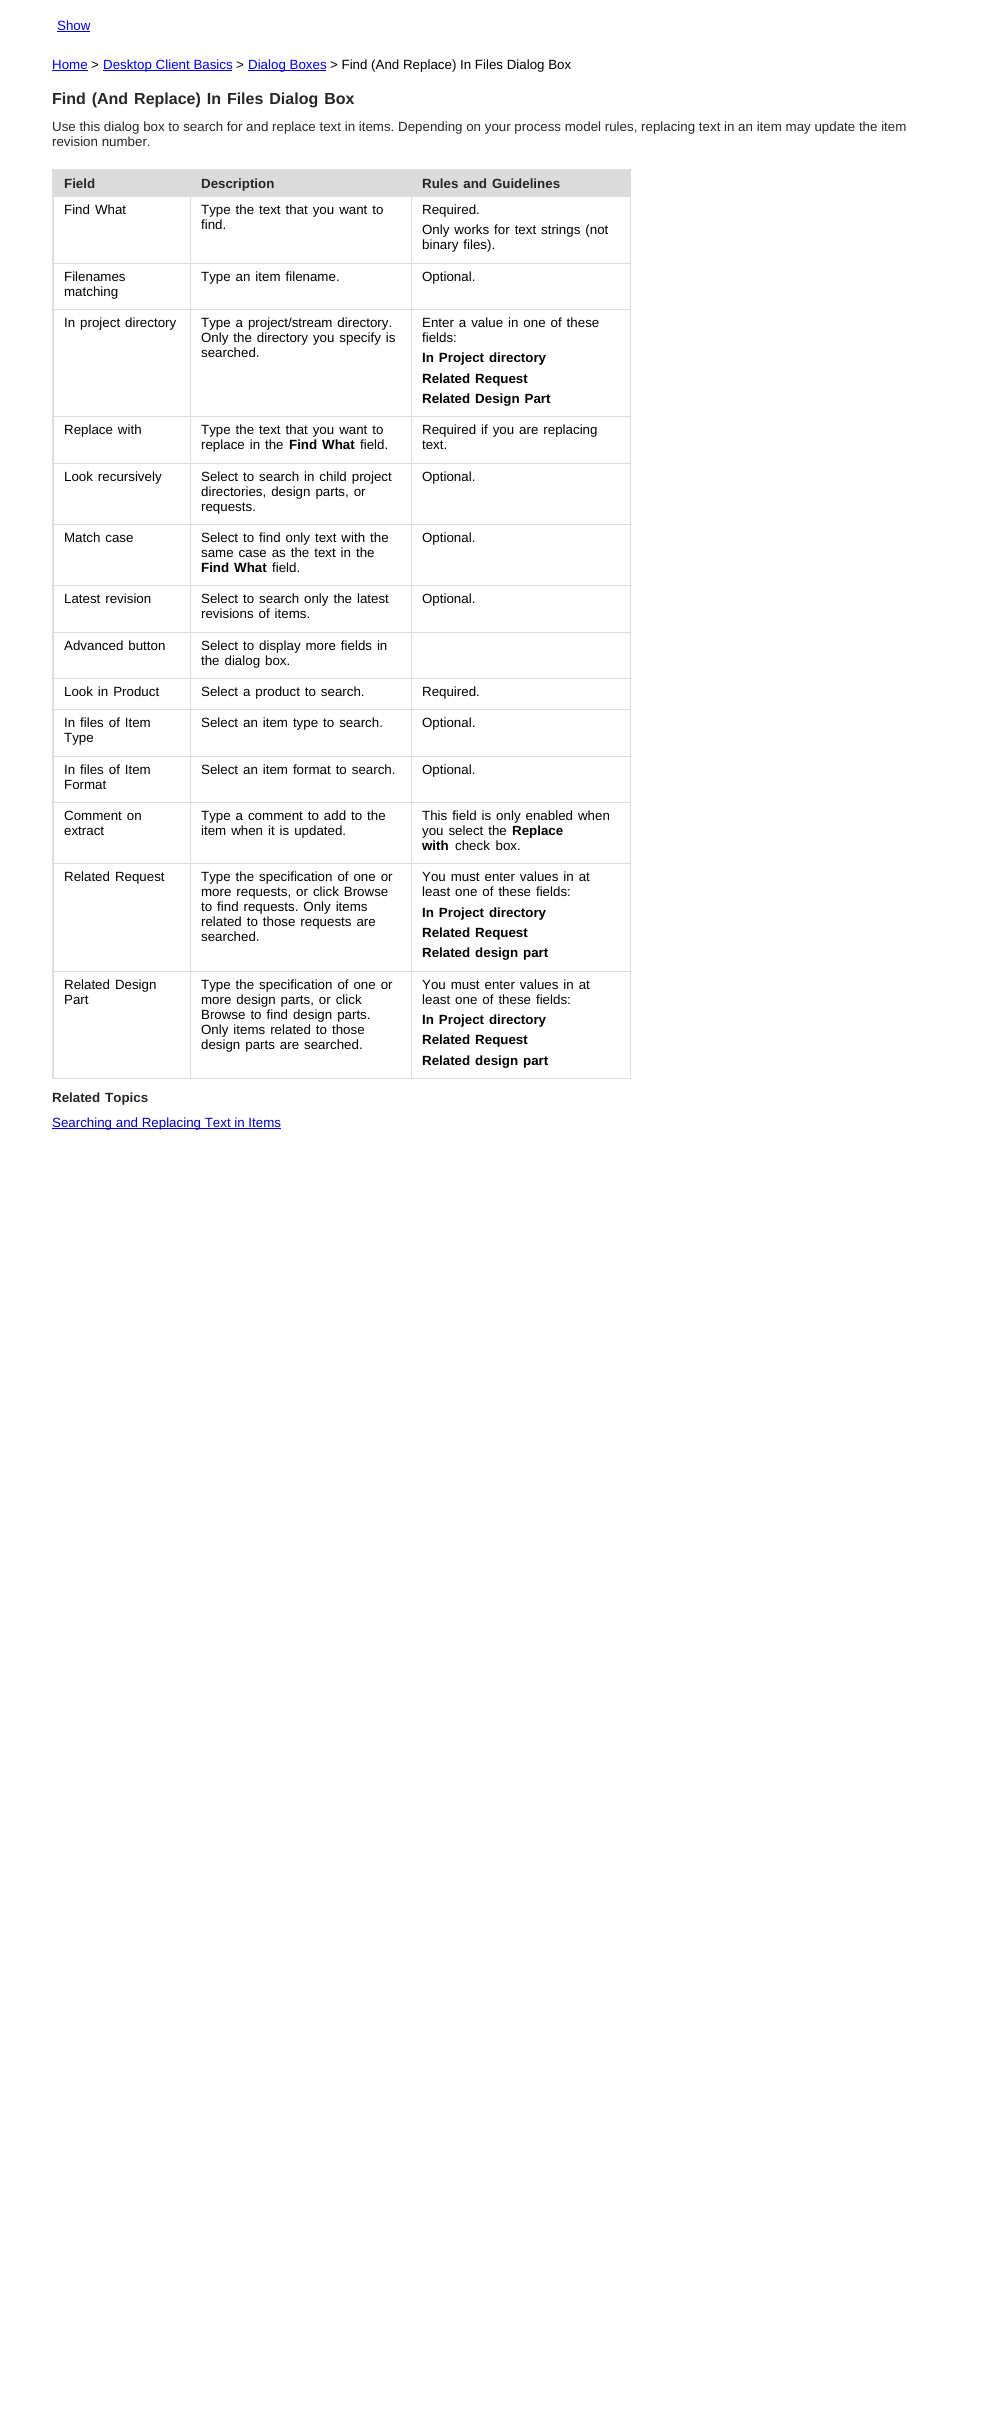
#include <cairo.h>
#include <math.h>
#include <stddef.h>

typedef struct { const char *family; double size; int italic, bold; unsigned color; } style_t;
static cairo_t *ctx;

static void ink(unsigned color) {
    cairo_set_source_rgb(ctx, (color >> 16) / 255.0, (color >> 8 & 255) / 255.0, (color & 255) / 255.0);
}

static void write(double x, double y, const char *s, const style_t *st) {
    cairo_select_font_face(ctx, st->family, st->italic ? CAIRO_FONT_SLANT_ITALIC : CAIRO_FONT_SLANT_NORMAL,
        st->bold ? CAIRO_FONT_WEIGHT_BOLD : CAIRO_FONT_WEIGHT_NORMAL);
    cairo_set_font_size(ctx, st->size);
    ink(st->color);
    cairo_move_to(ctx, x, y);
    cairo_show_text(ctx, s);
}

static void write_spaced(double x, double y, const char *s, double letter, double word) {
    cairo_move_to(ctx, x, y);
    while (*s) {
        char ch[5] = {0};
        int n = 0;
        do ch[n++] = *s++; while ((*s & 0xC0) == 0x80);
        cairo_show_text(ctx, ch);
        cairo_rel_move_to(ctx, letter + word * (*ch == ' '), 0);
    }
}

static void block(double x, double y, double w, double h, unsigned color) {
    ink(color);
    cairo_rectangle(ctx, x, y, w, h);
    cairo_fill(ctx);
}

static const style_t s1 = {"Liberation Sans", 13.33, 0, 0, 0x0000ee};
static const style_t s2 = {"Liberation Sans", 13.33, 0, 0, 0x000000};
static const style_t s3 = {"Liberation Sans", 13.33, 0, 0, 0x262626};
static const style_t s4 = {"Liberation Sans", 13.33, 0, 1, 0x262626};
static const style_t s5 = {"Liberation Sans", 13.33, 0, 1, 0x000000};
static const style_t s6 = {"Liberation Sans", 13.33, 0, 0, 0x0000bf};

int main(void) {
    cairo_surface_t *surface = cairo_image_surface_create(CAIRO_FORMAT_RGB24, 1000, 2423);
    ctx = cairo_create(surface);
    cairo_font_options_t *options = cairo_font_options_create();
    cairo_font_options_set_hint_metrics(options, CAIRO_HINT_METRICS_OFF);
    cairo_font_options_set_hint_style(options, CAIRO_HINT_STYLE_NONE);
    cairo_set_font_options(ctx, options);
    cairo_set_miter_limit(ctx, 4);
    ink(0xffffff);
    cairo_paint(ctx);
    write(57, 30, "Show", &s1);
    block(57, 31, 33, 1, 0x0000ee);
    write(52, 69, "Home", &s1);
    block(52, 70, 36, 1, 0x0000ee);
    write(91, 69, ">", &s2);
    block(103, 70, 129, 1, 0x0000ee);
    write(103, 69, "Desktop Client Basics", &s1);
    write(236, 69, ">", &s2);
    block(248, 70, 78, 1, 0x0000ee);
    write(248, 69, "Dialog Boxes", &s1);
    write(330, 69, "> Find (And Replace) In Files Dialog Box", &s2);
    cairo_select_font_face(ctx, "Liberation Sans", CAIRO_FONT_SLANT_NORMAL, CAIRO_FONT_WEIGHT_BOLD);
    cairo_set_font_size(ctx, 16);
    ink(0x262626);
    write_spaced(52, 104, "Find (And Replace) In Files Dialog Box", 0, 1.5);
    write(52, 131, "Use this dialog box to search for and replace text in items. Depending on your process model rules, replacing text in an item may update the item", &s3);
    write(52, 146, "revision number.", &s3);
    cairo_rectangle(ctx, 52.5, 169.5, 578, 909);
    ink(0xdddddd);
    cairo_set_line_width(ctx, 1);
    cairo_stroke(ctx);
    block(54, 171, 136, 25, 0xdbdbdb);
    block(53, 170, 577, 1, 0xdddddd);
    block(53, 170, 1, 26, 0xdddddd);
    write(64, 188, "Field", &s4);
    block(191, 171, 220, 25, 0xdbdbdb);
    block(190, 170, 1, 26, 0xdddddd);
    write(201, 188, "Description", &s4);
    block(412, 171, 218, 25, 0xdbdbdb);
    block(411, 170, 1, 26, 0xdddddd);
    ink(0x262626);
    write_spaced(422, 188, "Rules and Guidelines", 0, 1.25);
    block(53, 196, 577, 1, 0xdddddd);
    block(53, 196, 1, 67, 0xdddddd);
    cairo_select_font_face(ctx, "Liberation Sans", CAIRO_FONT_SLANT_NORMAL, CAIRO_FONT_WEIGHT_NORMAL);
    ink(0x000000);
    write_spaced(64, 214, "Find What", 0, 1.25);
    block(190, 196, 1, 67, 0xdddddd);
    ink(0x000000);
    write_spaced(201, 214, "Type the text that you want to", 0, 1.25);
    write(201, 229, "find.", &s2);
    block(411, 196, 1, 67, 0xdddddd);
    write(422, 214, "Required.", &s2);
    write_spaced(422, 234, "Only works for text strings (not", 0, 1.25);
    write_spaced(422, 249, "binary files).", 0, 1.25);
    block(53, 263, 577, 1, 0xdddddd);
    block(53, 263, 1, 46, 0xdddddd);
    write(64, 281, "Filenames", &s2);
    write(64, 296, "matching", &s2);
    block(190, 263, 1, 46, 0xdddddd);
    ink(0x000000);
    write_spaced(201, 281, "Type an item filename.", 0, 1.25);
    block(411, 263, 1, 46, 0xdddddd);
    write(422, 281, "Optional.", &s2);
    block(53, 309, 577, 1, 0xdddddd);
    block(53, 309, 1, 107, 0xdddddd);
    ink(0x000000);
    write_spaced(64, 327, "In project directory", 0, 1.25);
    block(190, 309, 1, 107, 0xdddddd);
    ink(0x000000);
    write_spaced(201, 327, "Type a project/stream directory.", 0, 1.25);
    write_spaced(201, 342, "Only the directory you specify is", 0, 1.25);
    write(201, 357, "searched.", &s2);
    block(411, 309, 1, 107, 0xdddddd);
    ink(0x000000);
    write_spaced(422, 327, "Enter a value in one of these", 0, 1.25);
    write(422, 342, "fields:", &s2);
    cairo_select_font_face(ctx, "Liberation Sans", CAIRO_FONT_SLANT_NORMAL, CAIRO_FONT_WEIGHT_BOLD);
    write_spaced(422, 362, "In Project directory", 0, 1.25);
    write_spaced(422, 383, "Related Request", 0, 1.25);
    write_spaced(422, 403, "Related Design Part", 0, 1.25);
    block(53, 416, 577, 1, 0xdddddd);
    block(53, 416, 1, 47, 0xdddddd);
    cairo_select_font_face(ctx, "Liberation Sans", CAIRO_FONT_SLANT_NORMAL, CAIRO_FONT_WEIGHT_NORMAL);
    ink(0x000000);
    write_spaced(64, 434, "Replace with", 0, 1.25);
    block(190, 416, 1, 47, 0xdddddd);
    ink(0x000000);
    write_spaced(201, 434, "Type the text that you want to", 0, 1.25);
    write_spaced(201, 449, "replace in the", 0, 1.25);
    cairo_select_font_face(ctx, "Liberation Sans", CAIRO_FONT_SLANT_NORMAL, CAIRO_FONT_WEIGHT_BOLD);
    write_spaced(289, 449, "Find What", 0, 1.25);
    write(360, 449, "field.", &s2);
    block(411, 416, 1, 47, 0xdddddd);
    ink(0x000000);
    write_spaced(422, 434, "Required if you are replacing", 0, 1.25);
    write(422, 449, "text.", &s2);
    block(53, 463, 577, 1, 0xdddddd);
    block(53, 463, 1, 61, 0xdddddd);
    ink(0x000000);
    write_spaced(64, 481, "Look recursively", 0, 1.25);
    block(190, 463, 1, 61, 0xdddddd);
    ink(0x000000);
    write_spaced(201, 481, "Select to search in child project", 0, 1.25);
    write_spaced(201, 496, "directories, design parts, or", 0, 1.25);
    write(201, 511, "requests.", &s2);
    block(411, 463, 1, 61, 0xdddddd);
    write(422, 481, "Optional.", &s2);
    block(53, 524, 577, 1, 0xdddddd);
    block(53, 524, 1, 61, 0xdddddd);
    ink(0x000000);
    write_spaced(64, 542, "Match case", 0, 1.25);
    block(190, 524, 1, 61, 0xdddddd);
    ink(0x000000);
    write_spaced(201, 542, "Select to find only text with the", 0, 1.25);
    write_spaced(201, 557, "same case as the text in the", 0, 1.25);
    cairo_select_font_face(ctx, "Liberation Sans", CAIRO_FONT_SLANT_NORMAL, CAIRO_FONT_WEIGHT_BOLD);
    write_spaced(201, 572, "Find What", 0, 1.25);
    write(272, 572, "field.", &s2);
    block(411, 524, 1, 61, 0xdddddd);
    write(422, 542, "Optional.", &s2);
    block(53, 585, 577, 1, 0xdddddd);
    block(53, 585, 1, 47, 0xdddddd);
    ink(0x000000);
    write_spaced(64, 603, "Latest revision", 0, 1.25);
    block(190, 585, 1, 47, 0xdddddd);
    ink(0x000000);
    write_spaced(201, 603, "Select to search only the latest", 0, 1.25);
    write_spaced(201, 618, "revisions of items.", 0, 1.25);
    block(411, 585, 1, 47, 0xdddddd);
    write(422, 603, "Optional.", &s2);
    block(53, 632, 577, 1, 0xdddddd);
    block(53, 632, 1, 46, 0xdddddd);
    ink(0x000000);
    write_spaced(64, 650, "Advanced button", 0, 1.25);
    block(190, 632, 1, 46, 0xdddddd);
    ink(0x000000);
    write_spaced(201, 650, "Select to display more fields in", 0, 1.25);
    write_spaced(201, 665, "the dialog box.", 0, 1.25);
    block(411, 632, 1, 46, 0xdddddd);
    block(53, 678, 577, 1, 0xdddddd);
    block(53, 678, 1, 31, 0xdddddd);
    ink(0x000000);
    write_spaced(64, 696, "Look in Product", 0, 1.25);
    block(190, 678, 1, 31, 0xdddddd);
    ink(0x000000);
    write_spaced(201, 696, "Select a product to search.", 0, 1.25);
    block(411, 678, 1, 31, 0xdddddd);
    write(422, 696, "Required.", &s2);
    block(53, 709, 577, 1, 0xdddddd);
    block(53, 709, 1, 47, 0xdddddd);
    ink(0x000000);
    write_spaced(64, 727, "In files of Item", 0, 1.25);
    write(64, 742, "Type", &s2);
    block(190, 709, 1, 47, 0xdddddd);
    ink(0x000000);
    write_spaced(201, 727, "Select an item type to search.", 0, 1.25);
    block(411, 709, 1, 47, 0xdddddd);
    write(422, 727, "Optional.", &s2);
    block(53, 756, 577, 1, 0xdddddd);
    block(53, 756, 1, 46, 0xdddddd);
    ink(0x000000);
    write_spaced(64, 774, "In files of Item", 0, 1.25);
    write(64, 789, "Format", &s2);
    block(190, 756, 1, 46, 0xdddddd);
    ink(0x000000);
    write_spaced(201, 774, "Select an item format to search.", 0, 1.25);
    block(411, 756, 1, 46, 0xdddddd);
    write(422, 774, "Optional.", &s2);
    block(53, 802, 577, 1, 0xdddddd);
    block(53, 802, 1, 61, 0xdddddd);
    ink(0x000000);
    write_spaced(64, 820, "Comment on", 0, 1.25);
    write(64, 835, "extract", &s2);
    block(190, 802, 1, 61, 0xdddddd);
    ink(0x000000);
    write_spaced(201, 820, "Type a comment to add to the", 0, 1.25);
    write_spaced(201, 835, "item when it is updated.", 0, 1.25);
    block(411, 802, 1, 61, 0xdddddd);
    ink(0x000000);
    write_spaced(422, 820, "This field is only enabled when", 0, 1.25);
    write_spaced(422, 835, "you select the", 0, 1.25);
    write(512, 835, "Replace", &s5);
    write(422, 850, "with", &s5);
    cairo_select_font_face(ctx, "Liberation Sans", CAIRO_FONT_SLANT_NORMAL, CAIRO_FONT_WEIGHT_NORMAL);
    write_spaced(455, 850, "check box.", 0, 2);
    block(53, 863, 577, 1, 0xdddddd);
    block(53, 863, 1, 108, 0xdddddd);
    ink(0x000000);
    write_spaced(64, 881, "Related Request", 0, 1.25);
    block(190, 863, 1, 108, 0xdddddd);
    ink(0x000000);
    write_spaced(201, 881, "Type the specification of one or", 0, 1.25);
    write_spaced(201, 896, "more requests, or click Browse", 0, 1.25);
    write_spaced(201, 911, "to find requests. Only items", 0, 1.25);
    write_spaced(201, 926, "related to those requests are", 0, 1.25);
    write(201, 941, "searched.", &s2);
    block(411, 863, 1, 108, 0xdddddd);
    ink(0x000000);
    write_spaced(422, 881, "You must enter values in at", 0, 1.25);
    write_spaced(422, 896, "least one of these fields:", 0, 1.25);
    cairo_select_font_face(ctx, "Liberation Sans", CAIRO_FONT_SLANT_NORMAL, CAIRO_FONT_WEIGHT_BOLD);
    write_spaced(422, 917, "In Project directory", 0, 1.25);
    write_spaced(422, 937, "Related Request", 0, 1.25);
    write_spaced(422, 957, "Related design part", 0, 1.25);
    block(53, 971, 577, 1, 0xdddddd);
    block(53, 971, 1, 107, 0xdddddd);
    cairo_select_font_face(ctx, "Liberation Sans", CAIRO_FONT_SLANT_NORMAL, CAIRO_FONT_WEIGHT_NORMAL);
    ink(0x000000);
    write_spaced(64, 989, "Related Design", 0, 1.25);
    write(64, 1004, "Part", &s2);
    block(190, 971, 1, 107, 0xdddddd);
    ink(0x000000);
    write_spaced(201, 989, "Type the specification of one or", 0, 1.25);
    write_spaced(201, 1004, "more design parts, or click", 0, 1.25);
    write_spaced(201, 1019, "Browse to find design parts.", 0, 1.25);
    write_spaced(201, 1034, "Only items related to those", 0, 1.25);
    write_spaced(201, 1049, "design parts are searched.", 0, 1.25);
    block(411, 971, 1, 107, 0xdddddd);
    ink(0x000000);
    write_spaced(422, 989, "You must enter values in at", 0, 1.25);
    write_spaced(422, 1004, "least one of these fields:", 0, 1.25);
    cairo_select_font_face(ctx, "Liberation Sans", CAIRO_FONT_SLANT_NORMAL, CAIRO_FONT_WEIGHT_BOLD);
    write_spaced(422, 1024, "In Project directory", 0, 1.25);
    write_spaced(422, 1044, "Related Request", 0, 1.25);
    write_spaced(422, 1065, "Related design part", 0, 1.25);
    ink(0x262626);
    write_spaced(52, 1102, "Related Topics", 0, 1.25);
    block(52, 1128, 229, 1, 0x0000ee);
    write(52, 1127, "Searching and Replacing Text in Items", &s6);
    cairo_surface_write_to_png(surface, "screenshot.png");
    cairo_font_options_destroy(options);
    cairo_destroy(ctx);
    cairo_surface_destroy(surface);
    return 0;
}
